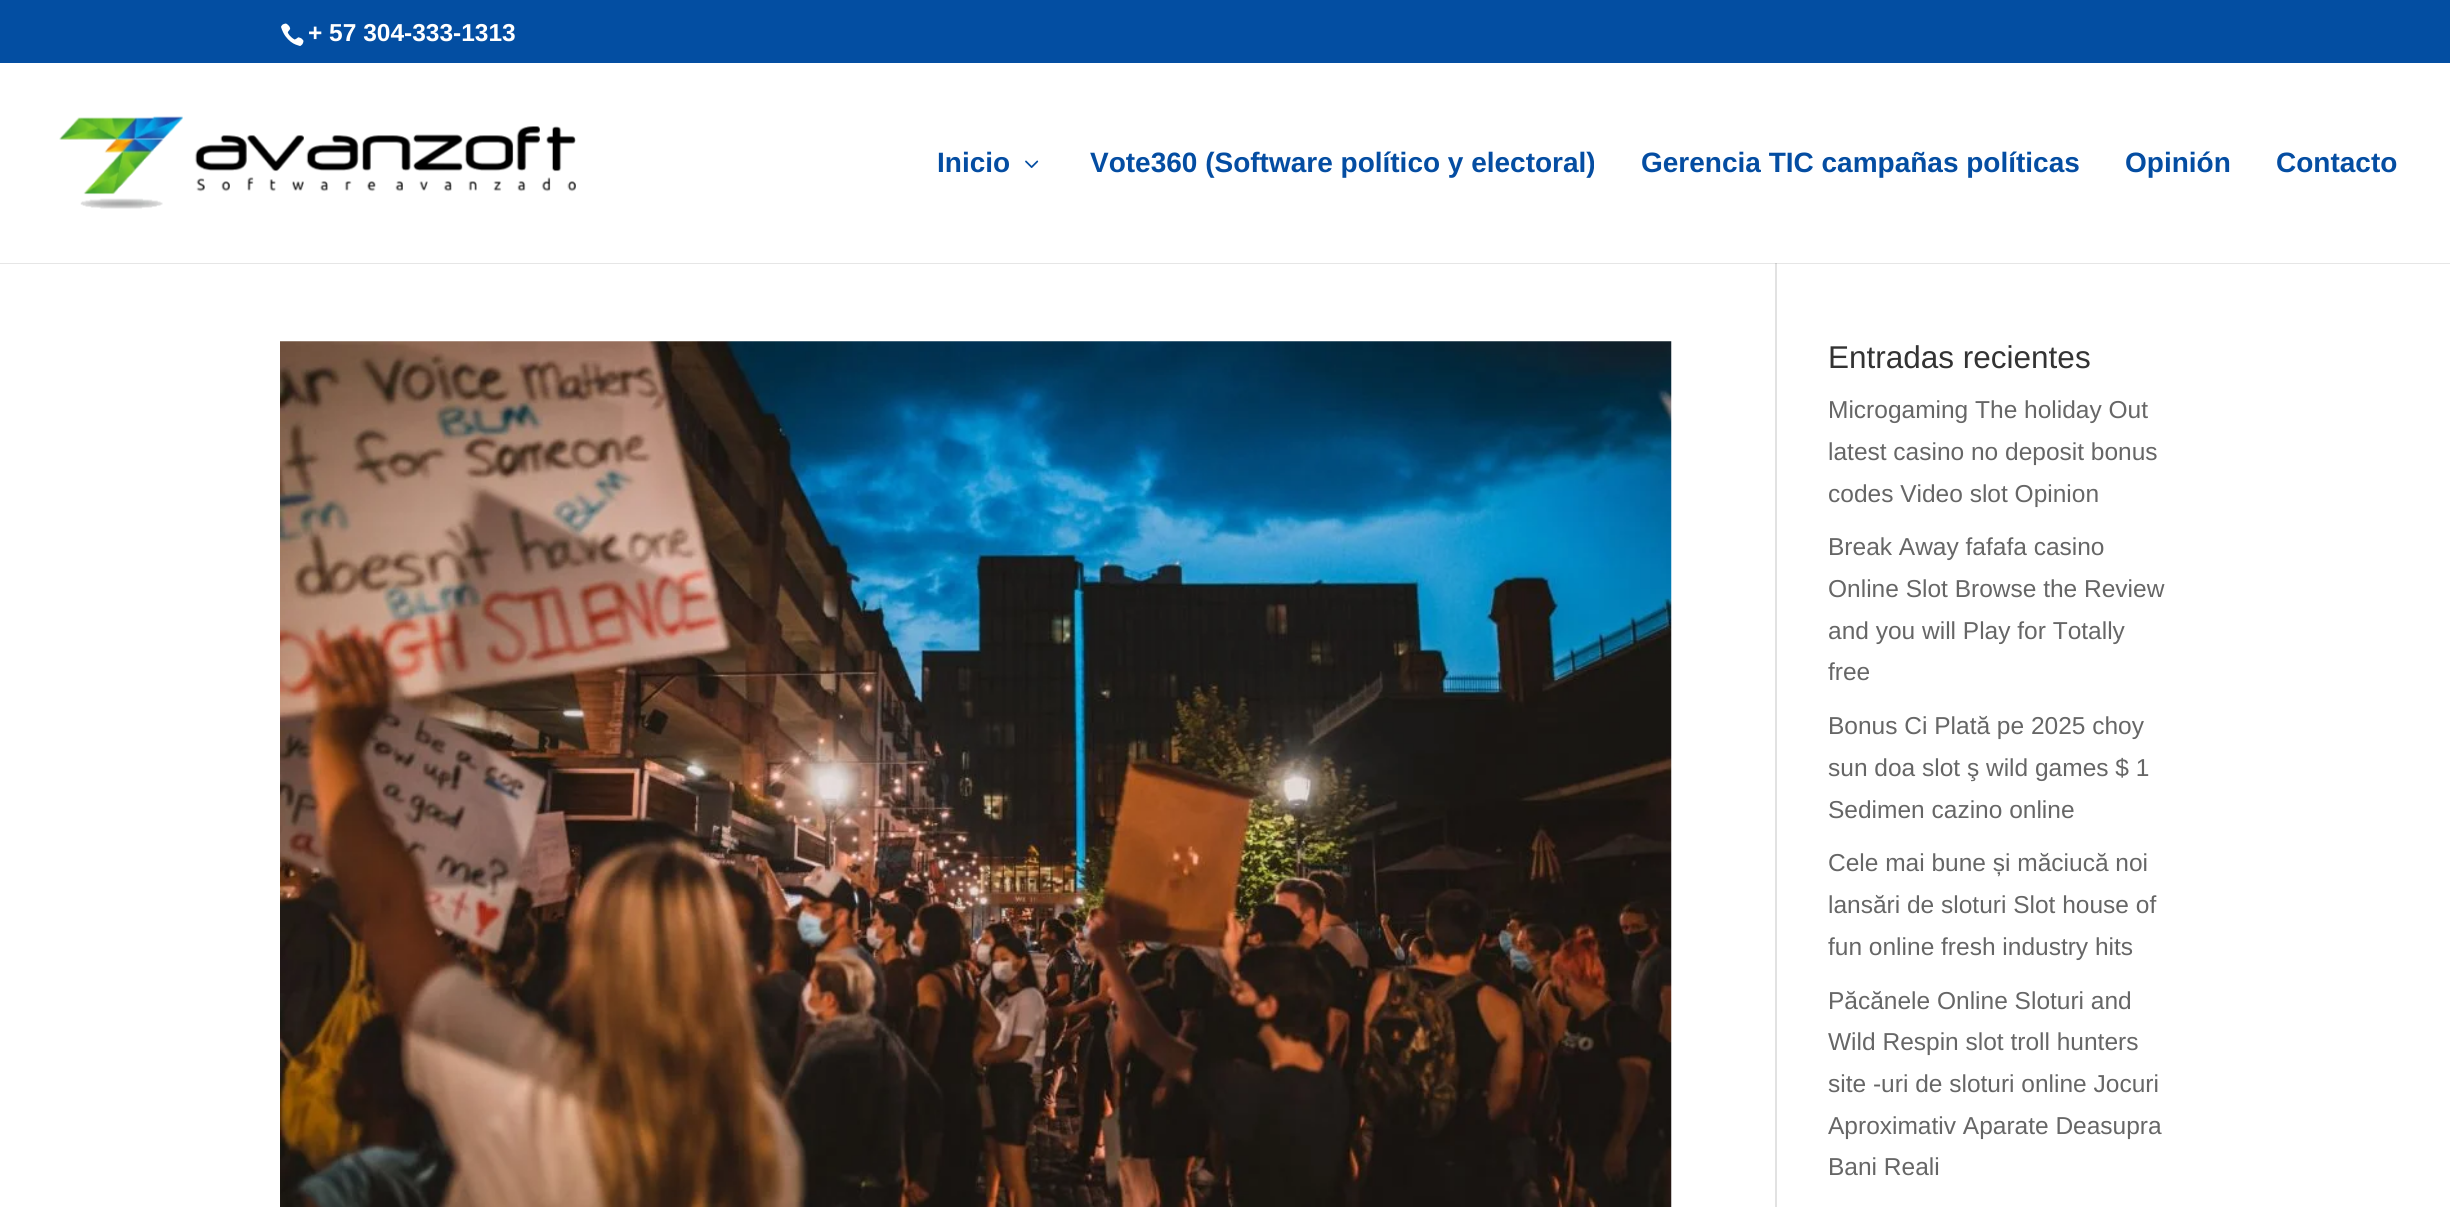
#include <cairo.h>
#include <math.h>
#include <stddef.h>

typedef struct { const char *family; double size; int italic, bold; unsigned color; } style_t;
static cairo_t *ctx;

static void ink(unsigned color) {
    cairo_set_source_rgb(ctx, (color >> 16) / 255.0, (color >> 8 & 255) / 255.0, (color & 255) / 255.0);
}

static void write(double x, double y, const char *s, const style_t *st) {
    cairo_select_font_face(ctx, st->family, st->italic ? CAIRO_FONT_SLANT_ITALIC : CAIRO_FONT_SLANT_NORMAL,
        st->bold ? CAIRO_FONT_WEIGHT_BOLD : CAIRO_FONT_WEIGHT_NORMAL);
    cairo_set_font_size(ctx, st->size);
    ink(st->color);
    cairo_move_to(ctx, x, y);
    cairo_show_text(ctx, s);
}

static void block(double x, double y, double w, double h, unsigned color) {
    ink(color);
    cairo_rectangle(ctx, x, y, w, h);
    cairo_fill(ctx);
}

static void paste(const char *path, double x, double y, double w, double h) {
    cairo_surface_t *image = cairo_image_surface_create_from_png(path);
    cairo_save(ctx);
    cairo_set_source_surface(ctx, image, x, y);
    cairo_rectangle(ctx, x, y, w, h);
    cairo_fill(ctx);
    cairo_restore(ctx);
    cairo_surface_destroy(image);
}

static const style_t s1 = {"Liberation Sans", 24.5, 0, 1, 0xffffff};
static const style_t s2 = {"Liberation Sans", 28, 0, 1, 0x044da2};
static const style_t s3 = {"Liberation Sans", 31.5, 0, 0, 0x333333};
static const style_t s4 = {"Liberation Sans", 24.5, 0, 0, 0x666666};

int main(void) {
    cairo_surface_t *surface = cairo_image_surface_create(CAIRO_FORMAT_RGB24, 2450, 1207);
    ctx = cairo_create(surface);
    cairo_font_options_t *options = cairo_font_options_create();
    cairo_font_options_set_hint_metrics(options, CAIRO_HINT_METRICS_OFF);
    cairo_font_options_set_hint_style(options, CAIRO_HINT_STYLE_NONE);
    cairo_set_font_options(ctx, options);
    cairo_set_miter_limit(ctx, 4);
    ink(0xffffff);
    cairo_paint(ctx);
    block(0, 0, 2450, 63, 0x034ea2);
    paste("pic1.png", 281, 23, 23, 23);
    write(308, 41, "+ 57 304-333-1313", &s1);
    paste("pic2.png", 59, 116, 517, 93);
    write(937, 172, "Inicio", &s2);
    paste("pic3.png", 1025, 160, 14, 8);
    write(1090, 172, "Vote360 (Software político y electoral)", &s2);
    write(1641, 172, "Gerencia TIC campañas políticas", &s2);
    write(2125, 172, "Opinión", &s2);
    write(2276, 172, "Contacto", &s2);
    block(0, 263, 2450, 1, 0xe6e6e6);
    block(1775, 264, 2, 943, 0xe2e2e2);
    block(1775, 263, 2, 1, 0xcbcbcb);
    paste("pic4.png", 280, 341, 1392, 866);
    write(1828, 368, "Entradas recientes", &s3);
    write(1828, 418, "Microgaming The holiday Out", &s4);
    write(1828, 460, "latest casino no deposit bonus", &s4);
    write(1828, 502, "codes Video slot Opinion", &s4);
    write(1828, 555, "Break Away fafafa casino", &s4);
    write(1828, 597, "Online Slot Browse the Review", &s4);
    write(1828, 639, "and you will Play for Totally", &s4);
    write(1828, 680, "free", &s4);
    write(1828, 734, "Bonus Ci Plată pe 2025 choy", &s4);
    write(1828, 776, "sun doa slot ş wild games $ 1", &s4);
    write(1828, 818, "Sedimen cazino online", &s4);
    write(1828, 871, "Cele mai bune și măciucă noi", &s4);
    write(1828, 913, "lansări de sloturi Slot house of", &s4);
    write(1828, 955, "fun online fresh industry hits", &s4);
    write(1828, 1009, "Păcănele Online Sloturi and", &s4);
    write(1828, 1050, "Wild Respin slot troll hunters", &s4);
    write(1828, 1092, "site -uri de sloturi online Jocuri", &s4);
    write(1828, 1134, "Aproximativ Aparate Deasupra", &s4);
    write(1828, 1175, "Bani Reali", &s4);
    cairo_surface_write_to_png(surface, "screenshot.png");
    cairo_font_options_destroy(options);
    cairo_destroy(ctx);
    cairo_surface_destroy(surface);
    return 0;
}
